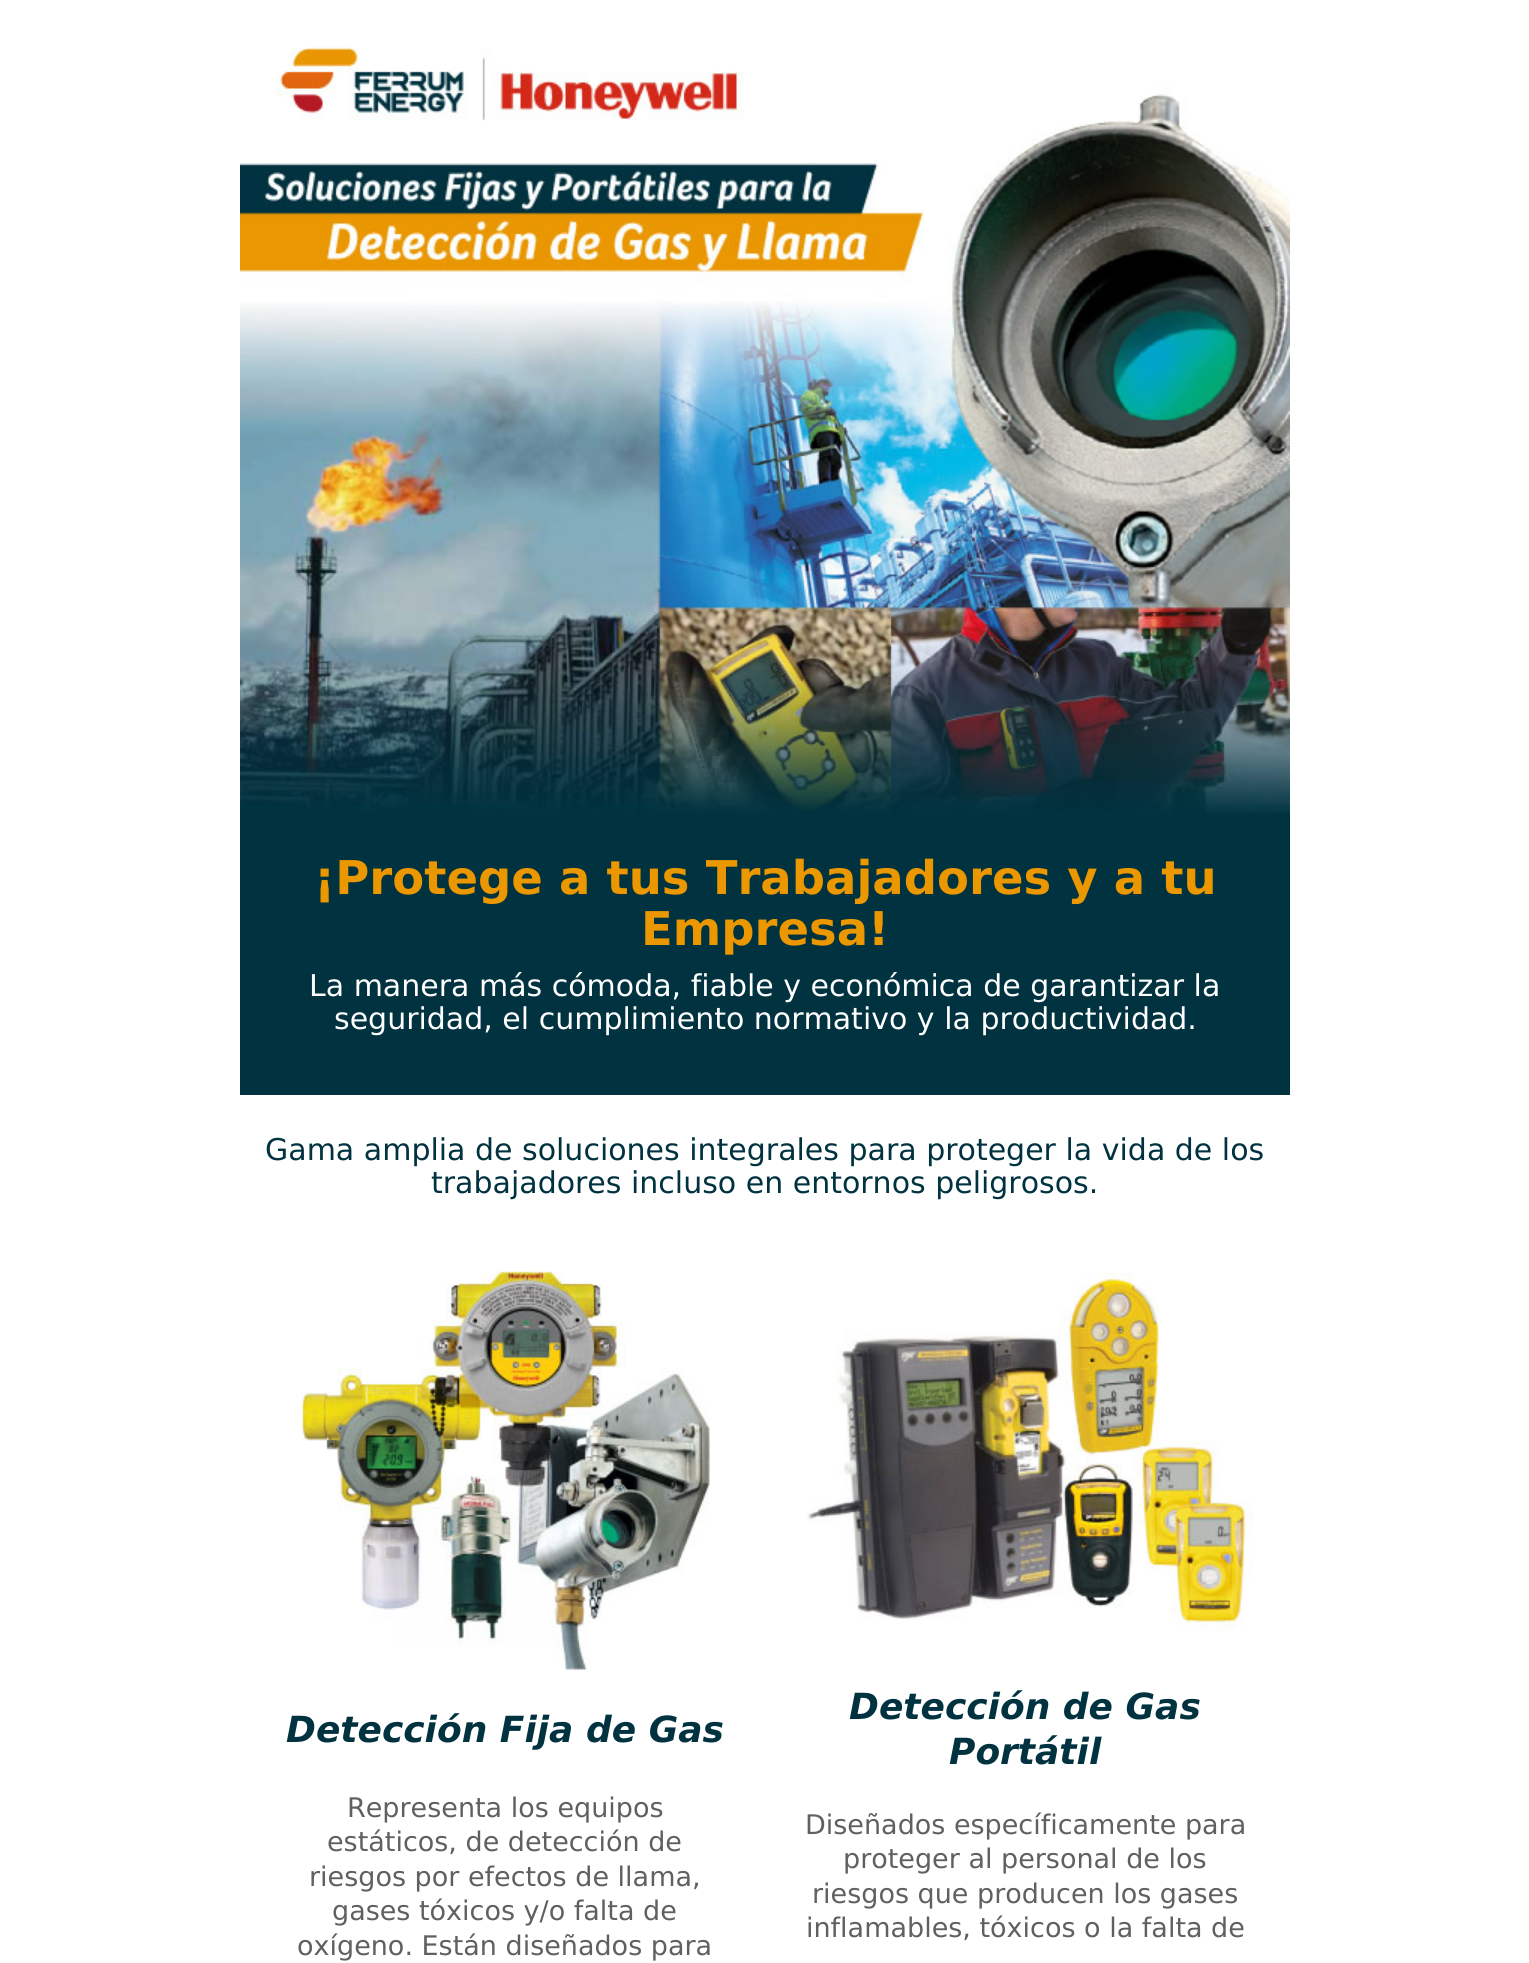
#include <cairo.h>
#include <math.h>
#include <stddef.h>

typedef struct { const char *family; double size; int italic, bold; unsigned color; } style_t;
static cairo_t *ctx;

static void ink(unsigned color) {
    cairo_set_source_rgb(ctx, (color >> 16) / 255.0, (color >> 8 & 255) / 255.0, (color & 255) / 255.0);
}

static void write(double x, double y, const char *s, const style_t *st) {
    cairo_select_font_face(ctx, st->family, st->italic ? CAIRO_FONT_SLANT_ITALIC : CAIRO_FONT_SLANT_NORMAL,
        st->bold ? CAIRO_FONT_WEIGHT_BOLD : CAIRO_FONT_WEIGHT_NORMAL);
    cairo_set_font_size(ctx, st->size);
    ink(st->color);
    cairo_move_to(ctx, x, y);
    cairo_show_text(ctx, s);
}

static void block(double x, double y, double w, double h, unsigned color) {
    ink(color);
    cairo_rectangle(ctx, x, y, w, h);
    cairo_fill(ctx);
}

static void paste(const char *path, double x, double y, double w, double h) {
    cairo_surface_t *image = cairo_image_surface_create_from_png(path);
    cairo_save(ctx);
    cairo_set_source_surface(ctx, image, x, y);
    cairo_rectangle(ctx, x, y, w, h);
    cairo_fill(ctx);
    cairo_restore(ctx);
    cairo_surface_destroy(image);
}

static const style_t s1 = {"DejaVu Sans", 46.5, 0, 1, 0xea9700};
static const style_t s2 = {"DejaVu Sans", 30, 0, 0, 0xffffff};
static const style_t s3 = {"DejaVu Sans", 30, 0, 0, 0x003240};
static const style_t s4 = {"DejaVu Sans", 36, 1, 1, 0x003240};
static const style_t s5 = {"DejaVu Sans", 27, 0, 0, 0x606060};

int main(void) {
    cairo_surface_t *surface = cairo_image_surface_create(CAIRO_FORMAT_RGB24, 1529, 1963);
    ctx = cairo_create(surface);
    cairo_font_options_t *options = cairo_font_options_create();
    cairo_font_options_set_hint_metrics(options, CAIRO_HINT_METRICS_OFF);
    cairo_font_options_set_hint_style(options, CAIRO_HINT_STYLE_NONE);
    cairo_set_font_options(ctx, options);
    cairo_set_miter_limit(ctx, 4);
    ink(0xffffff);
    cairo_paint(ctx);
    block(240, 814, 1050, 281, 0x003240);
    paste("pic1.png", 240, 12, 1050, 150);
    paste("pic2.png", 240, 162, 1050, 225);
    paste("pic3.png", 240, 387, 1050, 225);
    paste("pic4.png", 240, 612, 1050, 202);
    write(314, 894, "¡Protege a tus Trabajadores y a tu", &s1);
    write(641, 945, "Empresa!", &s1);
    write(309, 996, "La manera más cómoda, fiable y económica de garantizar la", &s2);
    write(334, 1029, "seguridad, el cumplimiento normativo y la productividad.", &s2);
    write(265, 1160, "Gama amplia de soluciones integrales para proteger la vida de los", &s3);
    write(431, 1193, "trabajadores incluso en entornos peligrosos.", &s3);
    paste("pic5.png", 301, 1271, 409, 399);
    paste("pic6.png", 807, 1272, 446, 360);
    write(286, 1742, "Detección Fija de Gas", &s4);
    write(849, 1719, "Detección de Gas", &s4);
    write(949, 1764, "Portátil", &s4);
    write(347, 1817, "Representa los equipos", &s5);
    write(327, 1851, "estáticos, de detección de", &s5);
    write(309, 1886, "riesgos por efectos de llama,", &s5);
    write(332, 1920, "gases tóxicos y/o falta de", &s5);
    write(297, 1955, "oxígeno. Están diseñados para", &s5);
    write(805, 1834, "Diseñados específicamente para", &s5);
    write(843, 1868, "proteger al personal de los", &s5);
    write(812, 1903, "riesgos que producen los gases", &s5);
    write(806, 1937, "inflamables, tóxicos o la falta de", &s5);
    cairo_surface_write_to_png(surface, "screenshot.png");
    cairo_font_options_destroy(options);
    cairo_destroy(ctx);
    cairo_surface_destroy(surface);
    return 0;
}
